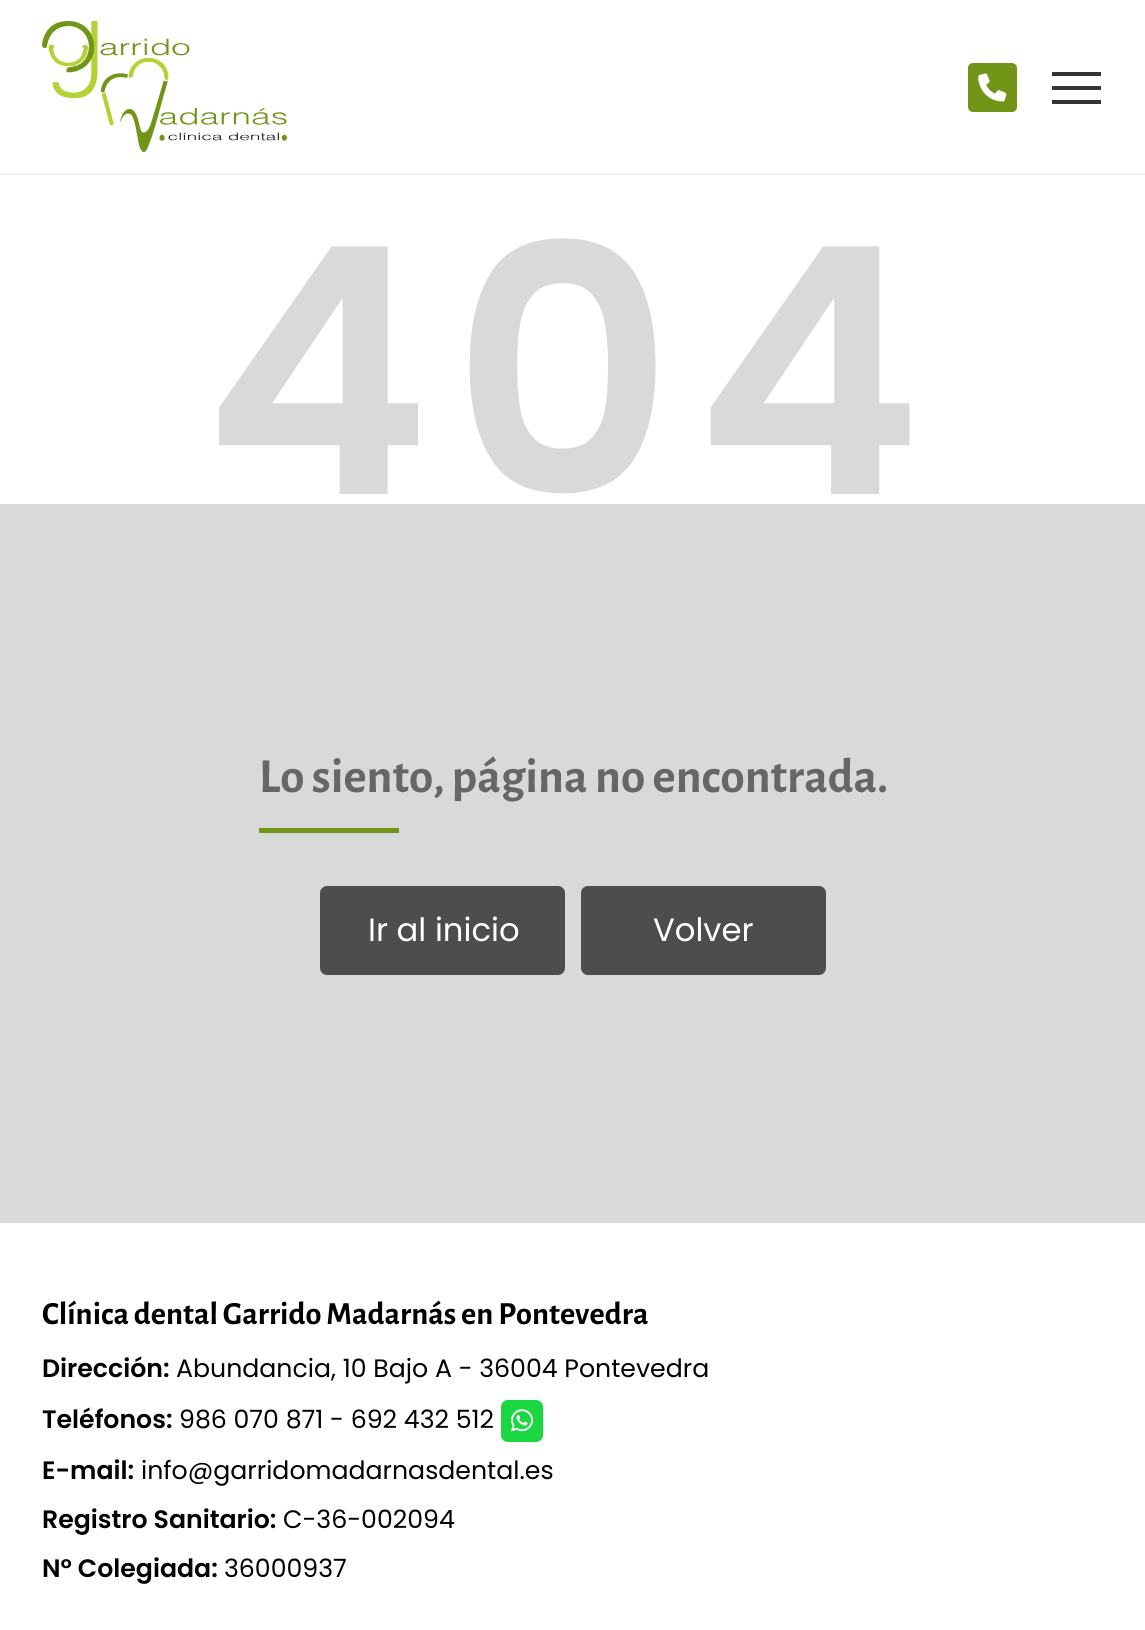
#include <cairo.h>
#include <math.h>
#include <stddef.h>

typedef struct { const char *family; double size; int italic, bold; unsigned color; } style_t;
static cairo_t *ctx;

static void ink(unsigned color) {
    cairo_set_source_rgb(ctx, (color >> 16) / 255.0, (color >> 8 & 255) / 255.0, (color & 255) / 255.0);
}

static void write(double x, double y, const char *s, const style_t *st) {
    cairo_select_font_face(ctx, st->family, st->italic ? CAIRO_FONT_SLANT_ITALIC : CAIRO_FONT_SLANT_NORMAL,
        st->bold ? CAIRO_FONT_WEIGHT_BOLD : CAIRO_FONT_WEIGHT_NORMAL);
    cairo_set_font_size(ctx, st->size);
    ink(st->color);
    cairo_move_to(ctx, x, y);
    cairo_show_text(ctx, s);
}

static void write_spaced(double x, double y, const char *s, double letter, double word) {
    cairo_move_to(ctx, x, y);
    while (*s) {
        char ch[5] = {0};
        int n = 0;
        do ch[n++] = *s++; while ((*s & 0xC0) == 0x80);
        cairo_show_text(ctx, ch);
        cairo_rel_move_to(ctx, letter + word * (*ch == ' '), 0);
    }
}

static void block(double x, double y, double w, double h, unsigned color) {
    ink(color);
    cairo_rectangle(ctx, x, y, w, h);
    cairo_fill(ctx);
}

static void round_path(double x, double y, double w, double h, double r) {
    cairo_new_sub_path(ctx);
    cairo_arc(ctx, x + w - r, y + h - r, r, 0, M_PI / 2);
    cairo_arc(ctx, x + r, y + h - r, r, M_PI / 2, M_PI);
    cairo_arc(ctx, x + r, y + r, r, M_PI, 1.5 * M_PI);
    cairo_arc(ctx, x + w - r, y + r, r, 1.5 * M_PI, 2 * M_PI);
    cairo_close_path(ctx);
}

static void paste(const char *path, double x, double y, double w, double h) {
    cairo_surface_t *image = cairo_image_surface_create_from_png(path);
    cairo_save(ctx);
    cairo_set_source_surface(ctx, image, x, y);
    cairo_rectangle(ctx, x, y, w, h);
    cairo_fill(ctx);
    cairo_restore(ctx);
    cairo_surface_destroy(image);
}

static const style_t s1 = {"Alegreya Sans", 49, 0, 1, 0x666666};
static const style_t s2 = {"Poppins", 32.25, 0, 0, 0xffffff};
static const style_t s3 = {"Alegreya Sans", 32.25, 0, 1, 0x000000};
static const style_t s4 = {"Poppins SemiBold", 25.2, 0, 0, 0x000000};
static const style_t s5 = {"Poppins", 25.2, 0, 0, 0x000000};

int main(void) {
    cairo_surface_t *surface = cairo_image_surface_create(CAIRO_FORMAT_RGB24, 1145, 1630);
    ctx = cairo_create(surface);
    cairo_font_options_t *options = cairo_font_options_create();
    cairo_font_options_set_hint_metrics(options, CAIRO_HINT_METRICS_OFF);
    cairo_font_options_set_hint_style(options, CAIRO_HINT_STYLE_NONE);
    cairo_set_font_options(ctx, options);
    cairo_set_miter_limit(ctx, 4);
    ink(0xffffff);
    cairo_paint(ctx);
    paste("pic1.png", 42, 21, 245, 131);
    ink(0x719617);
    round_path(968, 63, 49, 49, 5);
    cairo_fill(ctx);
    paste("pic2.png", 978, 73, 29, 29);
    block(1052, 72, 49, 4, 0x333333);
    block(1052, 86, 49, 4, 0x333333);
    block(1052, 100, 49, 4, 0x333333);
    block(0, 173, 1145, 2, 0xf2f2f2);
    cairo_select_font_face(ctx, "Poppins SemiBold", CAIRO_FONT_SLANT_NORMAL, CAIRO_FONT_WEIGHT_NORMAL);
    cairo_set_font_size(ctx, 344);
    ink(0xd9d9d9);
    write_spaced(203, 494, "404", 21, 0);
    block(0, 504, 1145, 719, 0xd9d9d9);
    write(259, 792, "Lo siento, página no encontrada.", &s1);
    block(259, 828, 140, 5, 0x719617);
    ink(0x4d4d4d);
    round_path(320, 886, 245, 89, 7);
    cairo_fill(ctx);
    write(368, 941, "Ir al inicio", &s2);
    ink(0x4d4d4d);
    round_path(581, 886, 245, 89, 7);
    cairo_fill(ctx);
    write(653, 941, "Volver", &s2);
    write(42, 1324, "Clínica dental Garrido Madarnás en Pontevedra", &s3);
    write(42, 1377, "Dirección:", &s4);
    write(176, 1377, "Abundancia, 10 Bajo A - 36004 Pontevedra", &s5);
    write(42, 1428, "Teléfonos:", &s4);
    write(179, 1428, "986 070 871 - 692 432 512", &s5);
    ink(0x1bd741);
    round_path(501, 1400, 42, 42, 7);
    cairo_fill(ctx);
    paste("pic3.png", 511, 1409, 23, 23);
    write(42, 1479, "E-mail:", &s4);
    write(141, 1479, "info@garridomadarnasdental.es", &s5);
    write(42, 1528, "Registro Sanitario:", &s4);
    write(283, 1528, "C-36-002094", &s5);
    write(42, 1577, "Nº Colegiada:", &s4);
    write(224, 1577, "36000937", &s5);
    cairo_surface_write_to_png(surface, "screenshot.png");
    cairo_font_options_destroy(options);
    cairo_destroy(ctx);
    cairo_surface_destroy(surface);
    return 0;
}
